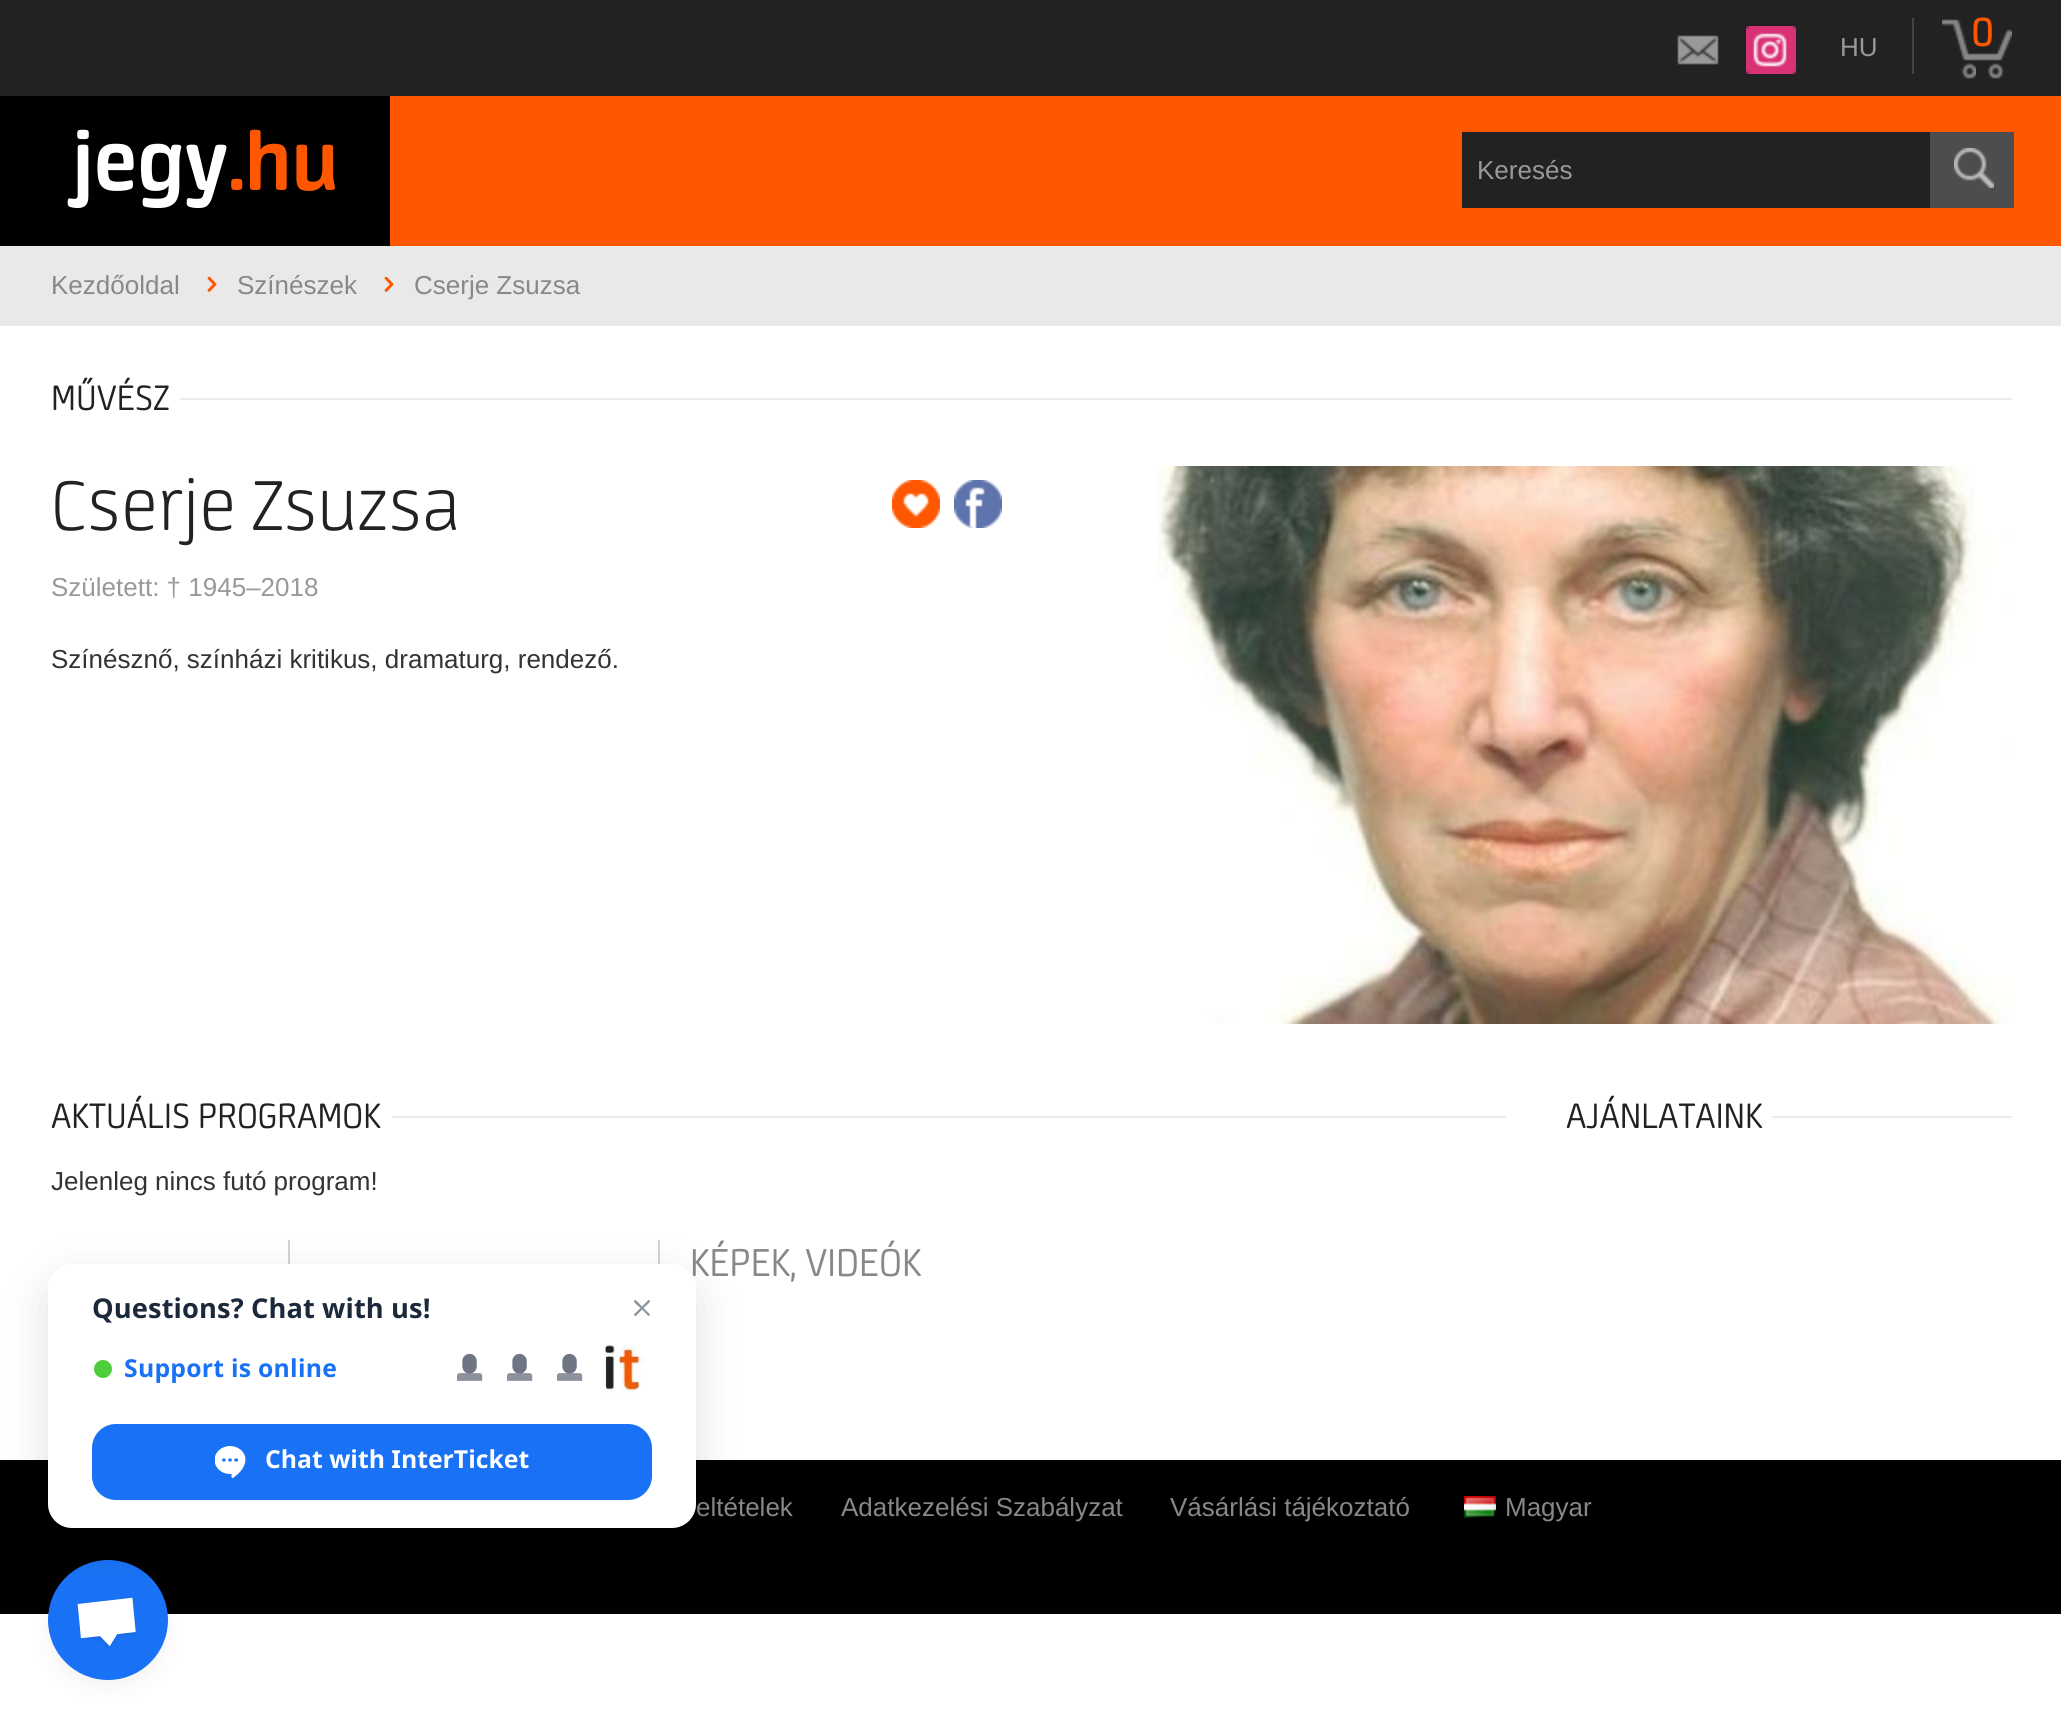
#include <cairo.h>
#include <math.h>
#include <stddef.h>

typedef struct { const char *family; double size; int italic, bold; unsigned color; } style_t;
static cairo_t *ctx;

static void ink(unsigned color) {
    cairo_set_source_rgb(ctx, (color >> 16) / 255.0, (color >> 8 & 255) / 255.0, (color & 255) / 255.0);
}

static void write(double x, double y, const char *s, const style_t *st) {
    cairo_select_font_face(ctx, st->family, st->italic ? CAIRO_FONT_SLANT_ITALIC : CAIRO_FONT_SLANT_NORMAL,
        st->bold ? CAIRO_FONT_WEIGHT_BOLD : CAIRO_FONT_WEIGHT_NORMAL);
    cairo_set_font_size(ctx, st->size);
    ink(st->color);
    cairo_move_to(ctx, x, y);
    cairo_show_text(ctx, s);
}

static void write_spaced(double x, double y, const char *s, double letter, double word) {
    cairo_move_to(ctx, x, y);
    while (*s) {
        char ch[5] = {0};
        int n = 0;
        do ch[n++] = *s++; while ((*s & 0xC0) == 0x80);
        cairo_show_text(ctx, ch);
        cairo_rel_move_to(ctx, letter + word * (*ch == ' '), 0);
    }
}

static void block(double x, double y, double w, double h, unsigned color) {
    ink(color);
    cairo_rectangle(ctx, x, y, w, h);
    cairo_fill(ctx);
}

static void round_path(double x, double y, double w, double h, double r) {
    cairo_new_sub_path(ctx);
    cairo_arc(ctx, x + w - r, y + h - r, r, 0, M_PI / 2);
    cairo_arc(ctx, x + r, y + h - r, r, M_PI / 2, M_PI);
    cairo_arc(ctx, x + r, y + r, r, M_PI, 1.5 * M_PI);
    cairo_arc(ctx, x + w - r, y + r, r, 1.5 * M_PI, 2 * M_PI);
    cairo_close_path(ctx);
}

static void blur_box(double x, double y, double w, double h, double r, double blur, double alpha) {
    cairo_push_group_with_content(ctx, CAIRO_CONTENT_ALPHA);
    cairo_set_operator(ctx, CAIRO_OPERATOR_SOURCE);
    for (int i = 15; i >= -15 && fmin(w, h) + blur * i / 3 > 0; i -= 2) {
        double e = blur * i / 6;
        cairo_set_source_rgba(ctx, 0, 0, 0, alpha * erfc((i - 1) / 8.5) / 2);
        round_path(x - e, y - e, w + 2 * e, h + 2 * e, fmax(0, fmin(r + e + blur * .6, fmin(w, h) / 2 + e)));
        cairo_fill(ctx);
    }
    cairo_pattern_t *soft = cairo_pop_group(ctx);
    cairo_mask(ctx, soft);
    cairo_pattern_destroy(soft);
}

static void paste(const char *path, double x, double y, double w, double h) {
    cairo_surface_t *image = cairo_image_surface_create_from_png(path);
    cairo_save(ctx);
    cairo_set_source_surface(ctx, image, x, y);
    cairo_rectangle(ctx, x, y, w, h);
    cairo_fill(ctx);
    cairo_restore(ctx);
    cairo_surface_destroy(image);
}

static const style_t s1 = {"Liberation Sans", 26, 0, 0, 0x999999};
static const style_t s2 = {"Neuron", 46, 0, 0, 0xff5700};
static const style_t s3 = {"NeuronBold", 92, 0, 1, 0xffffff};
static const style_t s4 = {"NeuronBold", 92, 0, 1, 0xff5700};
static const style_t s5 = {"Liberation Sans", 26, 0, 0, 0x888888};
static const style_t s6 = {"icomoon", 26, 0, 0, 0xff5700};
static const style_t s7 = {"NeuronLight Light", 40, 0, 0, 0x222222};
static const style_t s8 = {"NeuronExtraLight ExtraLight", 80, 0, 0, 0x222222};
static const style_t s9 = {"Liberation Sans", 26, 0, 0, 0x333333};
static const style_t s10 = {"NeuronLight Light", 44, 0, 0, 0x888888};
static const style_t s11 = {"Noto Sans", 24.75, 0, 1, 0xffffff};

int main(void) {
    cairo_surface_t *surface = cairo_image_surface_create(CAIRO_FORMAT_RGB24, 2061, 1720);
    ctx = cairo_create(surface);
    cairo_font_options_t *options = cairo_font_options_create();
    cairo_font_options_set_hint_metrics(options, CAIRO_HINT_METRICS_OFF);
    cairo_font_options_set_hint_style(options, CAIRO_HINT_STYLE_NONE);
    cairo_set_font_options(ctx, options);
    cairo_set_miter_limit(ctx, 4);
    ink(0xffffff);
    cairo_paint(ctx);
    block(0, 0, 2061, 96, 0x222222);
    paste("pic1.png", 1677, 35, 42, 30);
    paste("pic2.png", 1746, 26, 50, 48);
    write(1840, 56, "HU", &s1);
    block(1912, 18, 2, 56, 0x444444);
    paste("pic3.png", 1976, 53, 12, 8);
    paste("pic4.png", 1942, 19, 34, 60);
    paste("pic5.png", 1988, 29, 24, 50);
    write(1972, 46, "0", &s2);
    block(390, 96, 1671, 150, 0xff5700);
    block(0, 96, 390, 150, 0x000000);
    write(73, 190, "jegy", &s3);
    write(228, 190, ".hu", &s4);
    block(1462, 132, 468, 76, 0x222222);
    write(1477, 179, "Keresés", &s1);
    block(1930, 132, 84, 76, 0x4d4d4d);
    paste("pic6.png", 1954, 148, 40, 40);
    block(0, 246, 2061, 80, 0xe9e9e9);
    write(51, 294, "Kezdőoldal", &s5);
    write(199, 296, "$", &s6);
    write(237, 294, "Színészek", &s5);
    write(376, 296, "$", &s6);
    write(414, 294, "Cserje Zsuzsa", &s5);
    write(51, 410, "MŰVÉSZ", &s7);
    block(180, 398, 1832, 2, 0xececec);
    write(51, 530, "Cserje Zsuzsa", &s8);
    paste("pic7.png", 892, 480, 48, 48);
    paste("pic8.png", 954, 480, 48, 48);
    write(51, 596, "Született: † 1945–2018", &s1);
    write(51, 668, "Színésznő, színházi kritikus, dramaturg, rendező.", &s9);
    paste("pic9.png", 1156, 466, 854, 558);
    write(51, 1128, "AKTUÁLIS PROGRAMOK", &s7);
    block(392, 1116, 1114, 2, 0xececec);
    write(51, 1190, "Jelenleg nincs futó program!", &s9);
    block(288, 1240, 2, 24, 0xd2d2d2);
    block(658, 1240, 2, 24, 0xd2d2d2);
    write(690, 1276, "KÉPEK, VIDEÓK", &s10);
    write(1566, 1128, "AJÁNLATAINK", &s7);
    block(1772, 1116, 240, 2, 0xececec);
    block(0, 1460, 2061, 154, 0x000000);
    write(696, 1516, "eltételek", &s5);
    write(841, 1516, "Adatkezelési Szabályzat", &s5);
    write(1170, 1516, "Vásárlási tájékoztató", &s5);
    paste("pic10.png", 1464, 1496, 32, 22);
    write(1505, 1516, "Magyar", &s5);
    ink(0x000000);
    blur_box(48, 1568, 120, 120, 60, 10, 0.05);
    ink(0x1972f5);
    cairo_arc(ctx, 108, 1620, 60, 0, 2 * M_PI);
    cairo_fill(ctx);
    ink(0x000000);
    blur_box(48, 1280, 648, 264, 24, 24, 0.12);
    ink(0xffffff);
    round_path(48, 1264, 648, 264, 24);
    cairo_fill(ctx);
    cairo_select_font_face(ctx, "Noto Sans", CAIRO_FONT_SLANT_NORMAL, CAIRO_FONT_WEIGHT_BOLD);
    cairo_set_font_size(ctx, 27.25);
    ink(0x1c293b);
    write_spaced(92, 1318, "Questions? Chat with us!", 0.1, 0);
    ink(0x4ece3d);
    cairo_new_path(ctx);
    cairo_arc(ctx, 103, 1369, 9, 0, 2 * M_PI);
    cairo_fill(ctx);
    cairo_set_font_size(ctx, 24.75);
    ink(0x1972f5);
    write_spaced(124, 1377, "Support is online", 0.25, 0);
    paste("pic11.png", 457, 1353, 26, 28);
    paste("pic11.png", 507, 1353, 26, 28);
    paste("pic11.png", 557, 1353, 26, 28);
    paste("pic12.png", 604, 1344, 41, 49);
    ink(0x8d949d);
    cairo_new_path(ctx);
    cairo_move_to(ctx, 635, 1300);
    cairo_curve_to(ctx, 634.5, 1300, 634, 1300.5, 634, 1301);
    cairo_curve_to(ctx, 633.5, 1302.5, 639.5, 1307, 640.5, 1308);
    cairo_line_to(ctx, 636.5, 1312);
    cairo_curve_to(ctx, 636, 1312.5, 633, 1314.5, 634.5, 1316);
    cairo_curve_to(ctx, 636, 1317, 641, 1310.5, 642, 1309.5);
    cairo_line_to(ctx, 646, 1313.5);
    cairo_curve_to(ctx, 646.5, 1314, 648.5, 1317, 649.5, 1315.5);
    cairo_curve_to(ctx, 651, 1314.5, 648, 1312.5, 647.5, 1312);
    cairo_line_to(ctx, 643.5, 1308);
    cairo_curve_to(ctx, 644.5, 1307, 651, 1302, 650, 1300.5);
    cairo_curve_to(ctx, 648.5, 1299, 646.5, 1302, 646, 1302.5);
    cairo_line_to(ctx, 642, 1306.5);
    cairo_curve_to(ctx, 641, 1305.5, 636.5, 1300, 635, 1300);
    cairo_close_path(ctx);
    cairo_fill(ctx);
    ink(0x1972f5);
    round_path(92, 1424, 560, 76, 24);
    cairo_fill(ctx);
    ink(0xffffff);
    cairo_set_fill_rule(ctx, CAIRO_FILL_RULE_EVEN_ODD);
    cairo_new_path(ctx);
    cairo_move_to(ctx, 230, 1446);
    cairo_curve_to(ctx, 223, 1446, 216.5, 1450.5, 215, 1456.5);
    cairo_line_to(ctx, 215, 1463.5);
    cairo_curve_to(ctx, 217, 1470, 223.5, 1474.5, 231.5, 1474);
    cairo_line_to(ctx, 231.5, 1477);
    cairo_line_to(ctx, 232, 1478);
    cairo_line_to(ctx, 233, 1478);
    cairo_line_to(ctx, 238, 1474);
    cairo_curve_to(ctx, 245, 1467.5, 249, 1457.5, 241, 1450);
    cairo_curve_to(ctx, 238, 1447.5, 234, 1446, 230, 1446);
    cairo_close_path(ctx);
    cairo_move_to(ctx, 237, 1458.5);
    cairo_curve_to(ctx, 238.5, 1458.5, 238.5, 1461.5, 237, 1461.5);
    cairo_line_to(ctx, 235, 1461.5);
    cairo_curve_to(ctx, 234, 1461, 234, 1458.5, 235.5, 1458.5);
    cairo_close_path(ctx);
    cairo_move_to(ctx, 231, 1458.5);
    cairo_curve_to(ctx, 232, 1458.5, 232, 1461.5, 231, 1461.5);
    cairo_line_to(ctx, 229, 1461.5);
    cairo_curve_to(ctx, 228, 1461, 228, 1458.5, 229, 1458.5);
    cairo_close_path(ctx);
    cairo_move_to(ctx, 224.5, 1458.5);
    cairo_curve_to(ctx, 226, 1458.5, 226, 1461.5, 224.5, 1461.5);
    cairo_line_to(ctx, 222.5, 1461.5);
    cairo_curve_to(ctx, 222, 1461, 222, 1458.5, 223, 1458.5);
    cairo_close_path(ctx);
    cairo_fill(ctx);
    write(265, 1468, "Chat with InterTicket", &s11);
    paste("pic13.png", 77, 1597, 60, 51);
    cairo_surface_write_to_png(surface, "screenshot.png");
    cairo_font_options_destroy(options);
    cairo_destroy(ctx);
    cairo_surface_destroy(surface);
    return 0;
}
